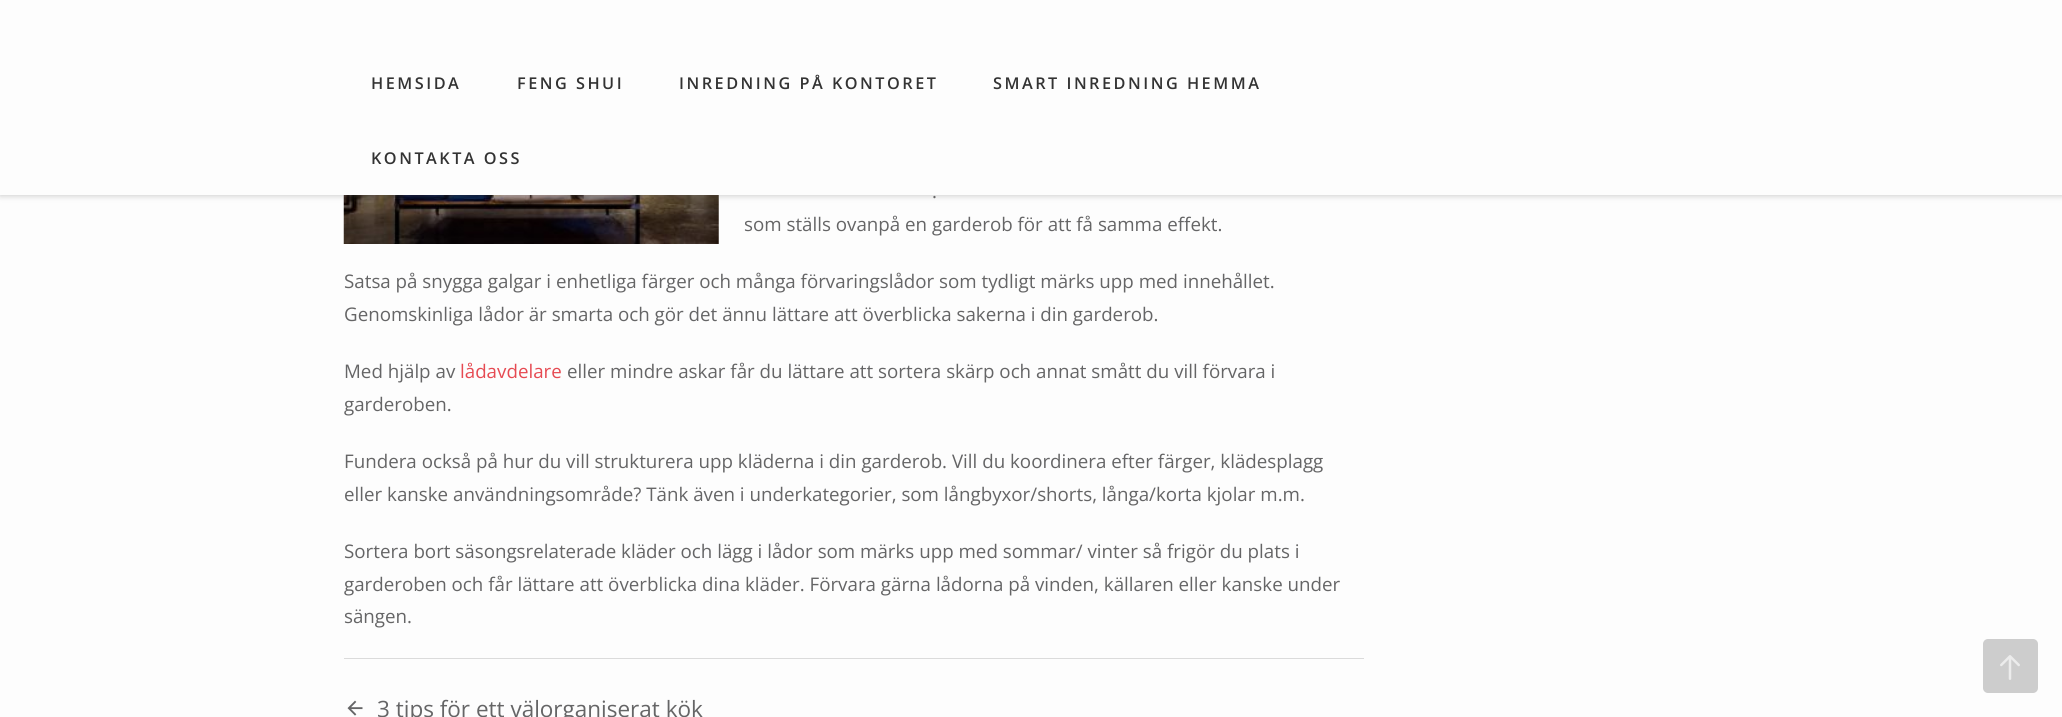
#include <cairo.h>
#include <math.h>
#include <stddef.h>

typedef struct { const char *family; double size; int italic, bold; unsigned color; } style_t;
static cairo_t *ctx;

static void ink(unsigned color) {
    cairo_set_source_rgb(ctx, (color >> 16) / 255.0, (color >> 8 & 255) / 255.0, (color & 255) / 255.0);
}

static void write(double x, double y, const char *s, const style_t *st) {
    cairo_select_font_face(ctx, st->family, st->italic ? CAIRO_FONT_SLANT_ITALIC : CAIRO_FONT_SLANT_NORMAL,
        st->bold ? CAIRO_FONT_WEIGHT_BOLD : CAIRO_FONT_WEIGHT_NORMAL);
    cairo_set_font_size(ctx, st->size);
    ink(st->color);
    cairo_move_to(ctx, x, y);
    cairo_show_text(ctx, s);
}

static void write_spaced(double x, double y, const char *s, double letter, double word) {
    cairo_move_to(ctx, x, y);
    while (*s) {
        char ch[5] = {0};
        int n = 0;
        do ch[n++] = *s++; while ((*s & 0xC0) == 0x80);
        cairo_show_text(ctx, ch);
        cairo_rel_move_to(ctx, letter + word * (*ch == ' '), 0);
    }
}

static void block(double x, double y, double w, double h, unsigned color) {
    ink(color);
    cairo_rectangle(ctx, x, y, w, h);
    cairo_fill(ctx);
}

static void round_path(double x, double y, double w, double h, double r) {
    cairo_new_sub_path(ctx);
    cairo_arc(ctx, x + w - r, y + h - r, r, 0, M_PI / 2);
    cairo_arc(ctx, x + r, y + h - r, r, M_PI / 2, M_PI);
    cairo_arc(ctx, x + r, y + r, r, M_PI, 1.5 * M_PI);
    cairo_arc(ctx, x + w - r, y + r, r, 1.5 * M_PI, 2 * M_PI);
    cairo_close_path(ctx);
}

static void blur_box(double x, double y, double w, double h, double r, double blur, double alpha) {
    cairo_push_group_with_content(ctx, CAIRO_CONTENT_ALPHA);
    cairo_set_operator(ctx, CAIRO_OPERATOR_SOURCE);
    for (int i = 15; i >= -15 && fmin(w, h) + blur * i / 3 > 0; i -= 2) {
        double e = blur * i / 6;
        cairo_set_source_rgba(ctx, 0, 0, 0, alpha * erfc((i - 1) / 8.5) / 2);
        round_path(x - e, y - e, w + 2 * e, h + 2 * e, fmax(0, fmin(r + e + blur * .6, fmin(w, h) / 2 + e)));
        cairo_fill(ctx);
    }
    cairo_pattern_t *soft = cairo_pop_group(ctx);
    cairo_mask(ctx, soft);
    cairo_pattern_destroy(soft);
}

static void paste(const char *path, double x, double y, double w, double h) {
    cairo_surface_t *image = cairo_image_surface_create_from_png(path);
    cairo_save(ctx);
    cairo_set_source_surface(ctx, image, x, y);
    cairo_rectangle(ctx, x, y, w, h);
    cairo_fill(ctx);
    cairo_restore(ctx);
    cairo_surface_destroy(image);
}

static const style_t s1 = {"Open Sans", 18.75, 0, 0, 0x656566};
static const style_t s2 = {"Open Sans", 18.75, 0, 0, 0xe64a52};
static const style_t s3 = {"Open Sans", 22.5, 0, 0, 0x656566};

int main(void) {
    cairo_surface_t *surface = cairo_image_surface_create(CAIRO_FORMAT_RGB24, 2062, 717);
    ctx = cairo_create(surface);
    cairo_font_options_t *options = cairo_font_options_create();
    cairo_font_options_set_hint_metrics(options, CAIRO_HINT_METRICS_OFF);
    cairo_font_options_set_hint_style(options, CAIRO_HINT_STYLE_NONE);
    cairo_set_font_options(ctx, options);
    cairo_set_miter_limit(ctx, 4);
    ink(0xfdfdfd);
    cairo_paint(ctx);
    paste("pic1.png", 343, 195, 376, 49);
    ink(0x636364);
    blur_box(0, 1, 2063, 195, 0, 3, 0.3);
    block(0, 0, 2062, 195, 0xfdfdfd);
    cairo_select_font_face(ctx, "Open Sans SemiBold", CAIRO_FONT_SLANT_NORMAL, CAIRO_FONT_WEIGHT_NORMAL);
    cairo_set_font_size(ctx, 16.25);
    ink(0x333333);
    write_spaced(371, 89, "HEMSIDA", 2.5, 0);
    write_spaced(517, 89, "FENG SHUI", 2.5, 0);
    write_spaced(679, 89, "INREDNING PÅ KONTORET", 2.5, 0);
    write_spaced(993, 89, "SMART INREDNING HEMMA", 2.5, 0);
    write_spaced(371, 164, "KONTAKTA OSS", 2.5, 0);
    write(932, 198, ".", &s1);
    write(744, 231, "som ställs ovanpå en garderob för att få samma effekt.", &s1);
    write(344, 288, "Satsa på snygga galgar i enhetliga färger och många förvaringslådor som tydligt märks upp med innehållet.", &s1);
    write(344, 321, "Genomskinliga lådor är smarta och gör det ännu lättare att överblicka sakerna i din garderob.", &s1);
    write(344, 378, "Med hjälp av", &s1);
    write(460, 378, "lådavdelare", &s2);
    write(567, 378, "eller mindre askar får du lättare att sortera skärp och annat smått du vill förvara i", &s1);
    write(344, 411, "garderoben.", &s1);
    write(344, 468, "Fundera också på hur du vill strukturera upp kläderna i din garderob. Vill du koordinera efter färger, klädesplagg", &s1);
    write(344, 501, "eller kanske användningsområde? Tänk även i underkategorier, som långbyxor/shorts, långa/korta kjolar m.m.", &s1);
    write(344, 558, "Sortera bort säsongsrelaterade kläder och lägg i lådor som märks upp med sommar/ vinter så frigör du plats i", &s1);
    write(344, 591, "garderoben och får lättare att överblicka dina kläder. Förvara gärna lådorna på vinden, källaren eller kanske under", &s1);
    write(344, 623, "sängen.", &s1);
    block(344, 658, 1020, 1, 0xdbdbdb);
    paste("pic2.png", 347, 700, 16, 16);
    write(377, 717, "3 tips för ett välorganiserat kök", &s3);
    ink(0xcdcdcd);
    round_path(1983, 639, 55, 54, 5);
    cairo_fill(ctx);
    paste("pic3.png", 2000, 655, 20, 25);
    cairo_surface_write_to_png(surface, "screenshot.png");
    cairo_font_options_destroy(options);
    cairo_destroy(ctx);
    cairo_surface_destroy(surface);
    return 0;
}
